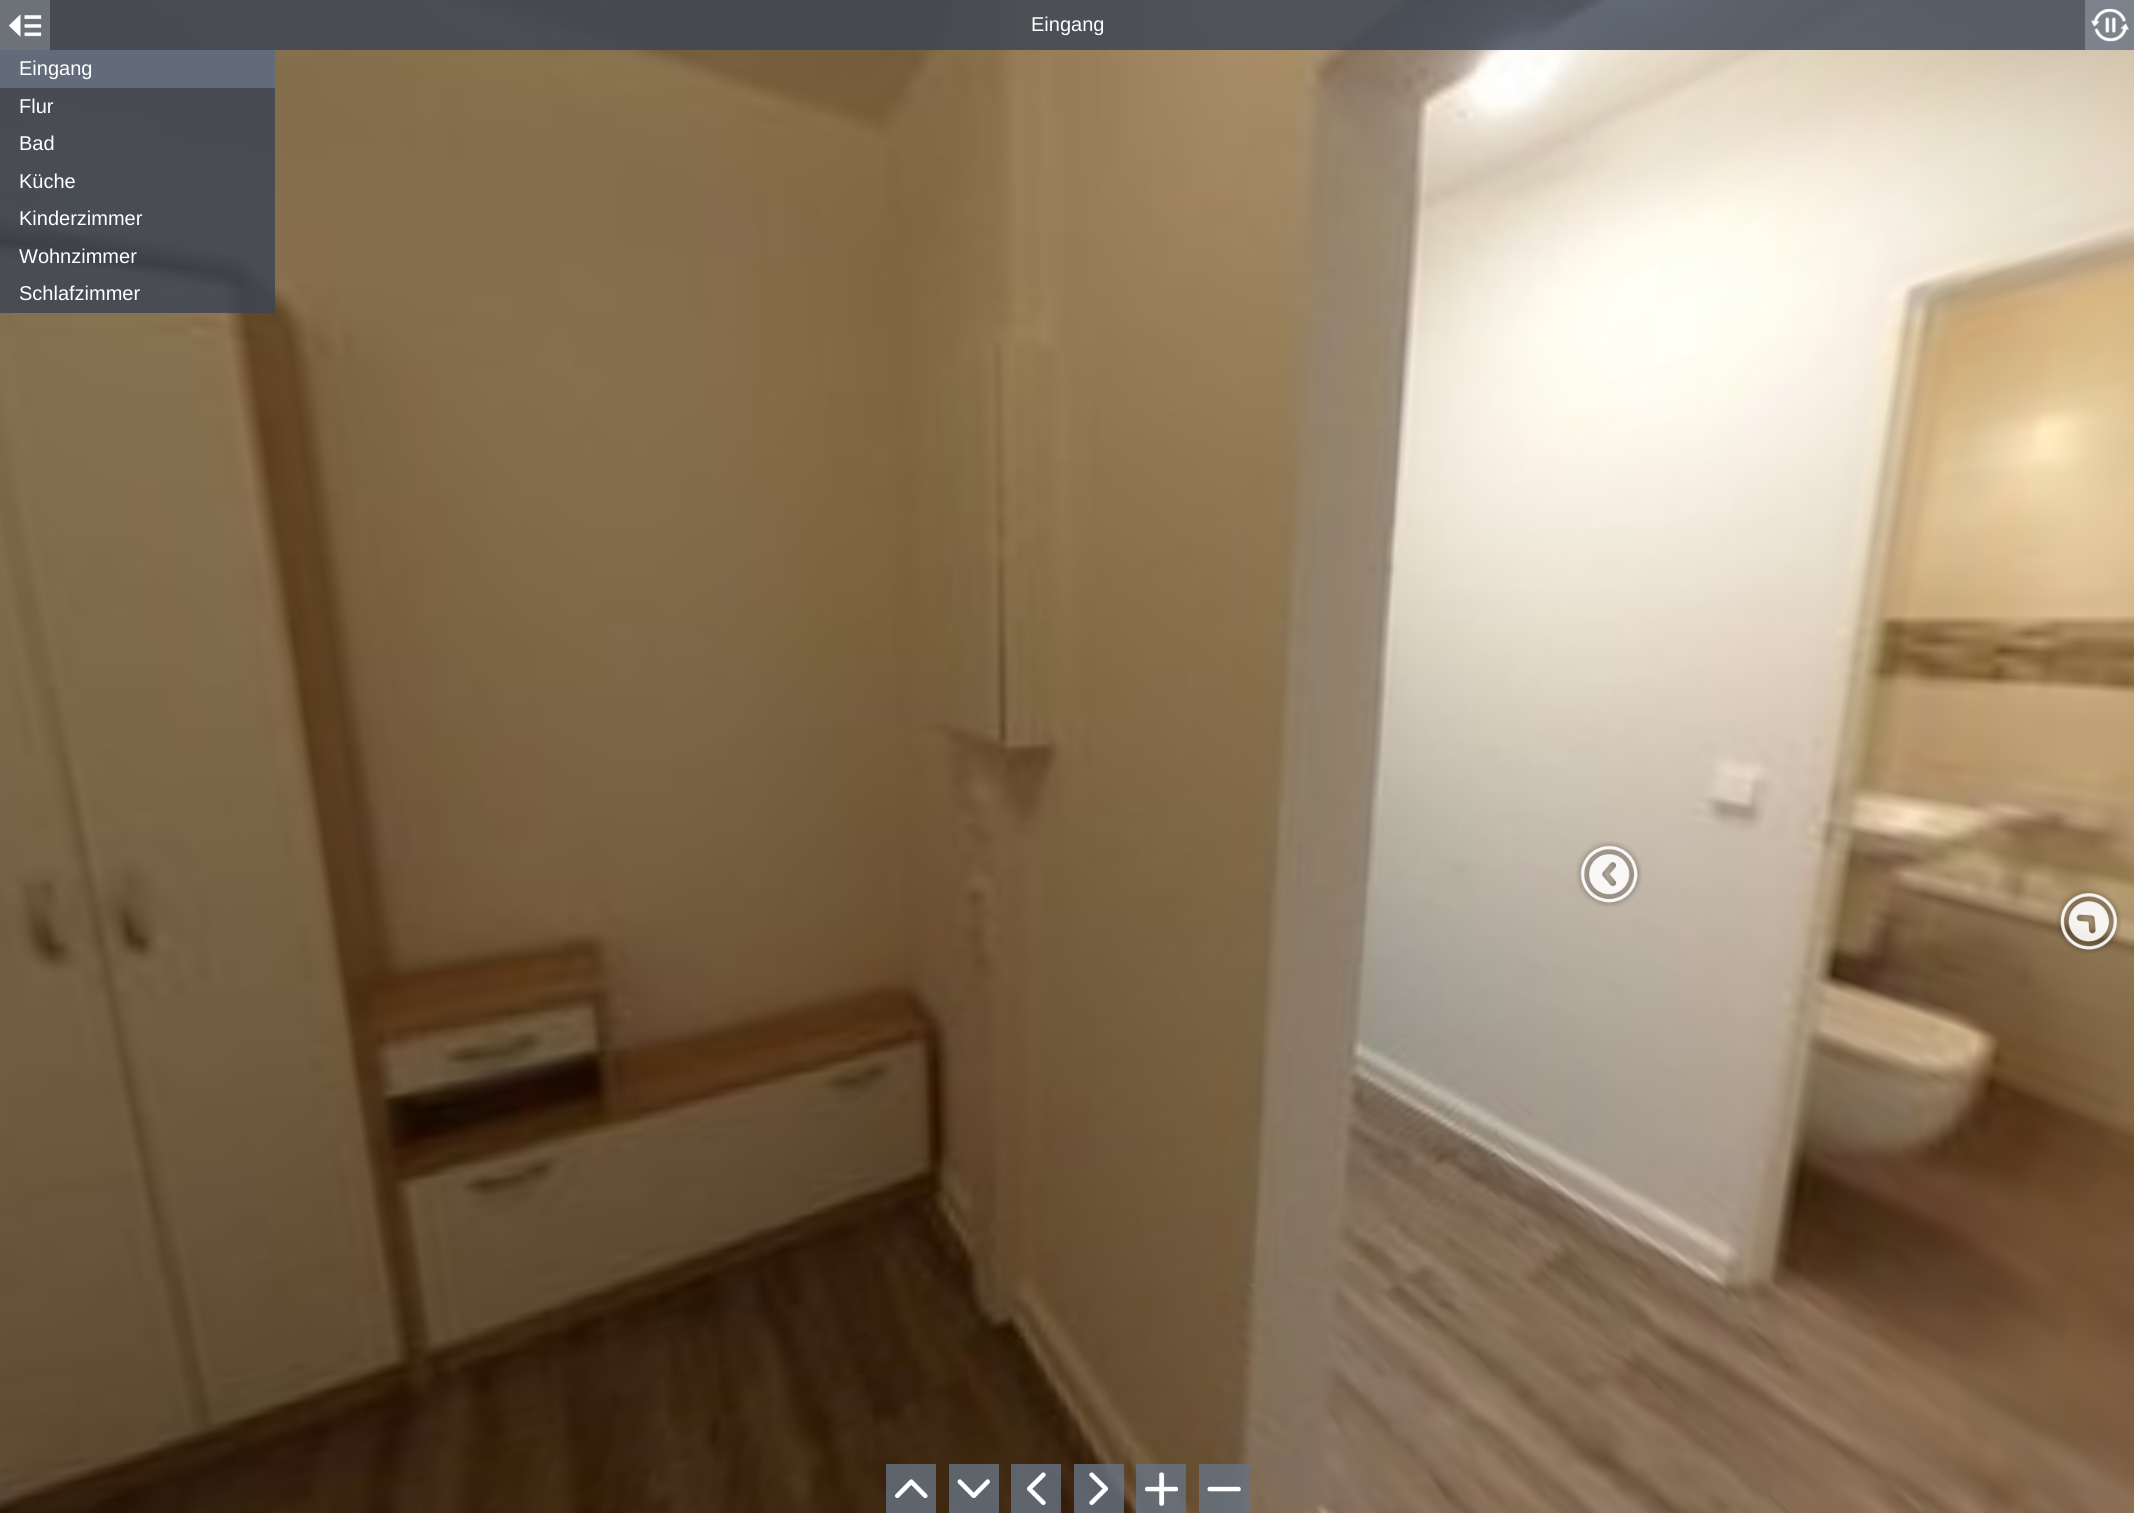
#include <cairo.h>
#include <math.h>
#include <stddef.h>

typedef struct { const char *family; double size; int italic, bold; unsigned color; } style_t;
static cairo_t *ctx;

static void ink(unsigned color) {
    cairo_set_source_rgb(ctx, (color >> 16) / 255.0, (color >> 8 & 255) / 255.0, (color & 255) / 255.0);
}

static void write(double x, double y, const char *s, const style_t *st) {
    cairo_select_font_face(ctx, st->family, st->italic ? CAIRO_FONT_SLANT_ITALIC : CAIRO_FONT_SLANT_NORMAL,
        st->bold ? CAIRO_FONT_WEIGHT_BOLD : CAIRO_FONT_WEIGHT_NORMAL);
    cairo_set_font_size(ctx, st->size);
    ink(st->color);
    cairo_move_to(ctx, x, y);
    cairo_show_text(ctx, s);
}

static void block(double x, double y, double w, double h, unsigned color) {
    ink(color);
    cairo_rectangle(ctx, x, y, w, h);
    cairo_fill(ctx);
}

static void paste(const char *path, double x, double y, double w, double h) {
    cairo_surface_t *image = cairo_image_surface_create_from_png(path);
    cairo_save(ctx);
    cairo_set_source_surface(ctx, image, x, y);
    cairo_rectangle(ctx, x, y, w, h);
    cairo_fill(ctx);
    cairo_restore(ctx);
    cairo_surface_destroy(image);
}

static const style_t s1 = {"Liberation Sans", 20, 0, 0, 0xffffff};

int main(void) {
    cairo_surface_t *surface = cairo_image_surface_create(CAIRO_FORMAT_RGB24, 2134, 1513);
    ctx = cairo_create(surface);
    cairo_font_options_t *options = cairo_font_options_create();
    cairo_font_options_set_hint_metrics(options, CAIRO_HINT_METRICS_OFF);
    cairo_font_options_set_hint_style(options, CAIRO_HINT_STYLE_NONE);
    cairo_set_font_options(ctx, options);
    cairo_set_miter_limit(ctx, 4);
    ink(0xffffff);
    cairo_paint(ctx);
    paste("pic1.png", 0, 0, 2134, 1513);
    paste("pic2.png", 1576, 841, 66, 66);
    paste("pic3.png", 2056, 888, 66, 66);
    block(0, 0, 50, 50, 0x6d7278);
    paste("pic4.png", 8, 14, 34, 23);
    cairo_set_source_rgba(ctx, 0.227, 0.267, 0.329, 0.8);
    cairo_rectangle(ctx, 50, 0, 2035, 50);
    cairo_fill(ctx);
    write(1031, 31, "Eingang", &s1);
    cairo_set_source_rgba(ctx, 0.404, 0.451, 0.514, 0.8);
    cairo_rectangle(ctx, 2085, 0, 49, 50);
    cairo_fill(ctx);
    paste("pic5.png", 2091, 8, 38, 34);
    cairo_set_source_rgba(ctx, 0.227, 0.267, 0.329, 0.8);
    cairo_rectangle(ctx, 0, 88, 275, 225);
    cairo_fill(ctx);
    block(0, 50, 275, 38, 0x616b79);
    write(19, 75, "Eingang", &s1);
    write(19, 113, "Flur", &s1);
    write(19, 150, "Bad", &s1);
    write(19, 188, "Küche", &s1);
    write(19, 225, "Kinderzimmer", &s1);
    write(19, 263, "Wohnzimmer", &s1);
    write(19, 300, "Schlafzimmer", &s1);
    cairo_set_source_rgba(ctx, 0.404, 0.451, 0.514, 0.8);
    cairo_rectangle(ctx, 886, 1464, 50, 49);
    cairo_fill(ctx);
    paste("pic6.png", 895, 1479, 33, 19);
    cairo_rectangle(ctx, 949, 1464, 50, 49);
    cairo_fill(ctx);
    paste("pic7.png", 957, 1479, 33, 19);
    cairo_rectangle(ctx, 1011, 1464, 50, 49);
    cairo_fill(ctx);
    paste("pic8.png", 1027, 1472, 19, 33);
    cairo_rectangle(ctx, 1074, 1464, 50, 49);
    cairo_fill(ctx);
    paste("pic9.png", 1089, 1472, 19, 33);
    cairo_rectangle(ctx, 1136, 1464, 50, 49);
    cairo_fill(ctx);
    paste("pic10.png", 1145, 1472, 33, 34);
    cairo_rectangle(ctx, 1199, 1464, 50, 49);
    cairo_fill(ctx);
    paste("pic11.png", 1207, 1486, 34, 6);
    cairo_surface_write_to_png(surface, "screenshot.png");
    cairo_font_options_destroy(options);
    cairo_destroy(ctx);
    cairo_surface_destroy(surface);
    return 0;
}
